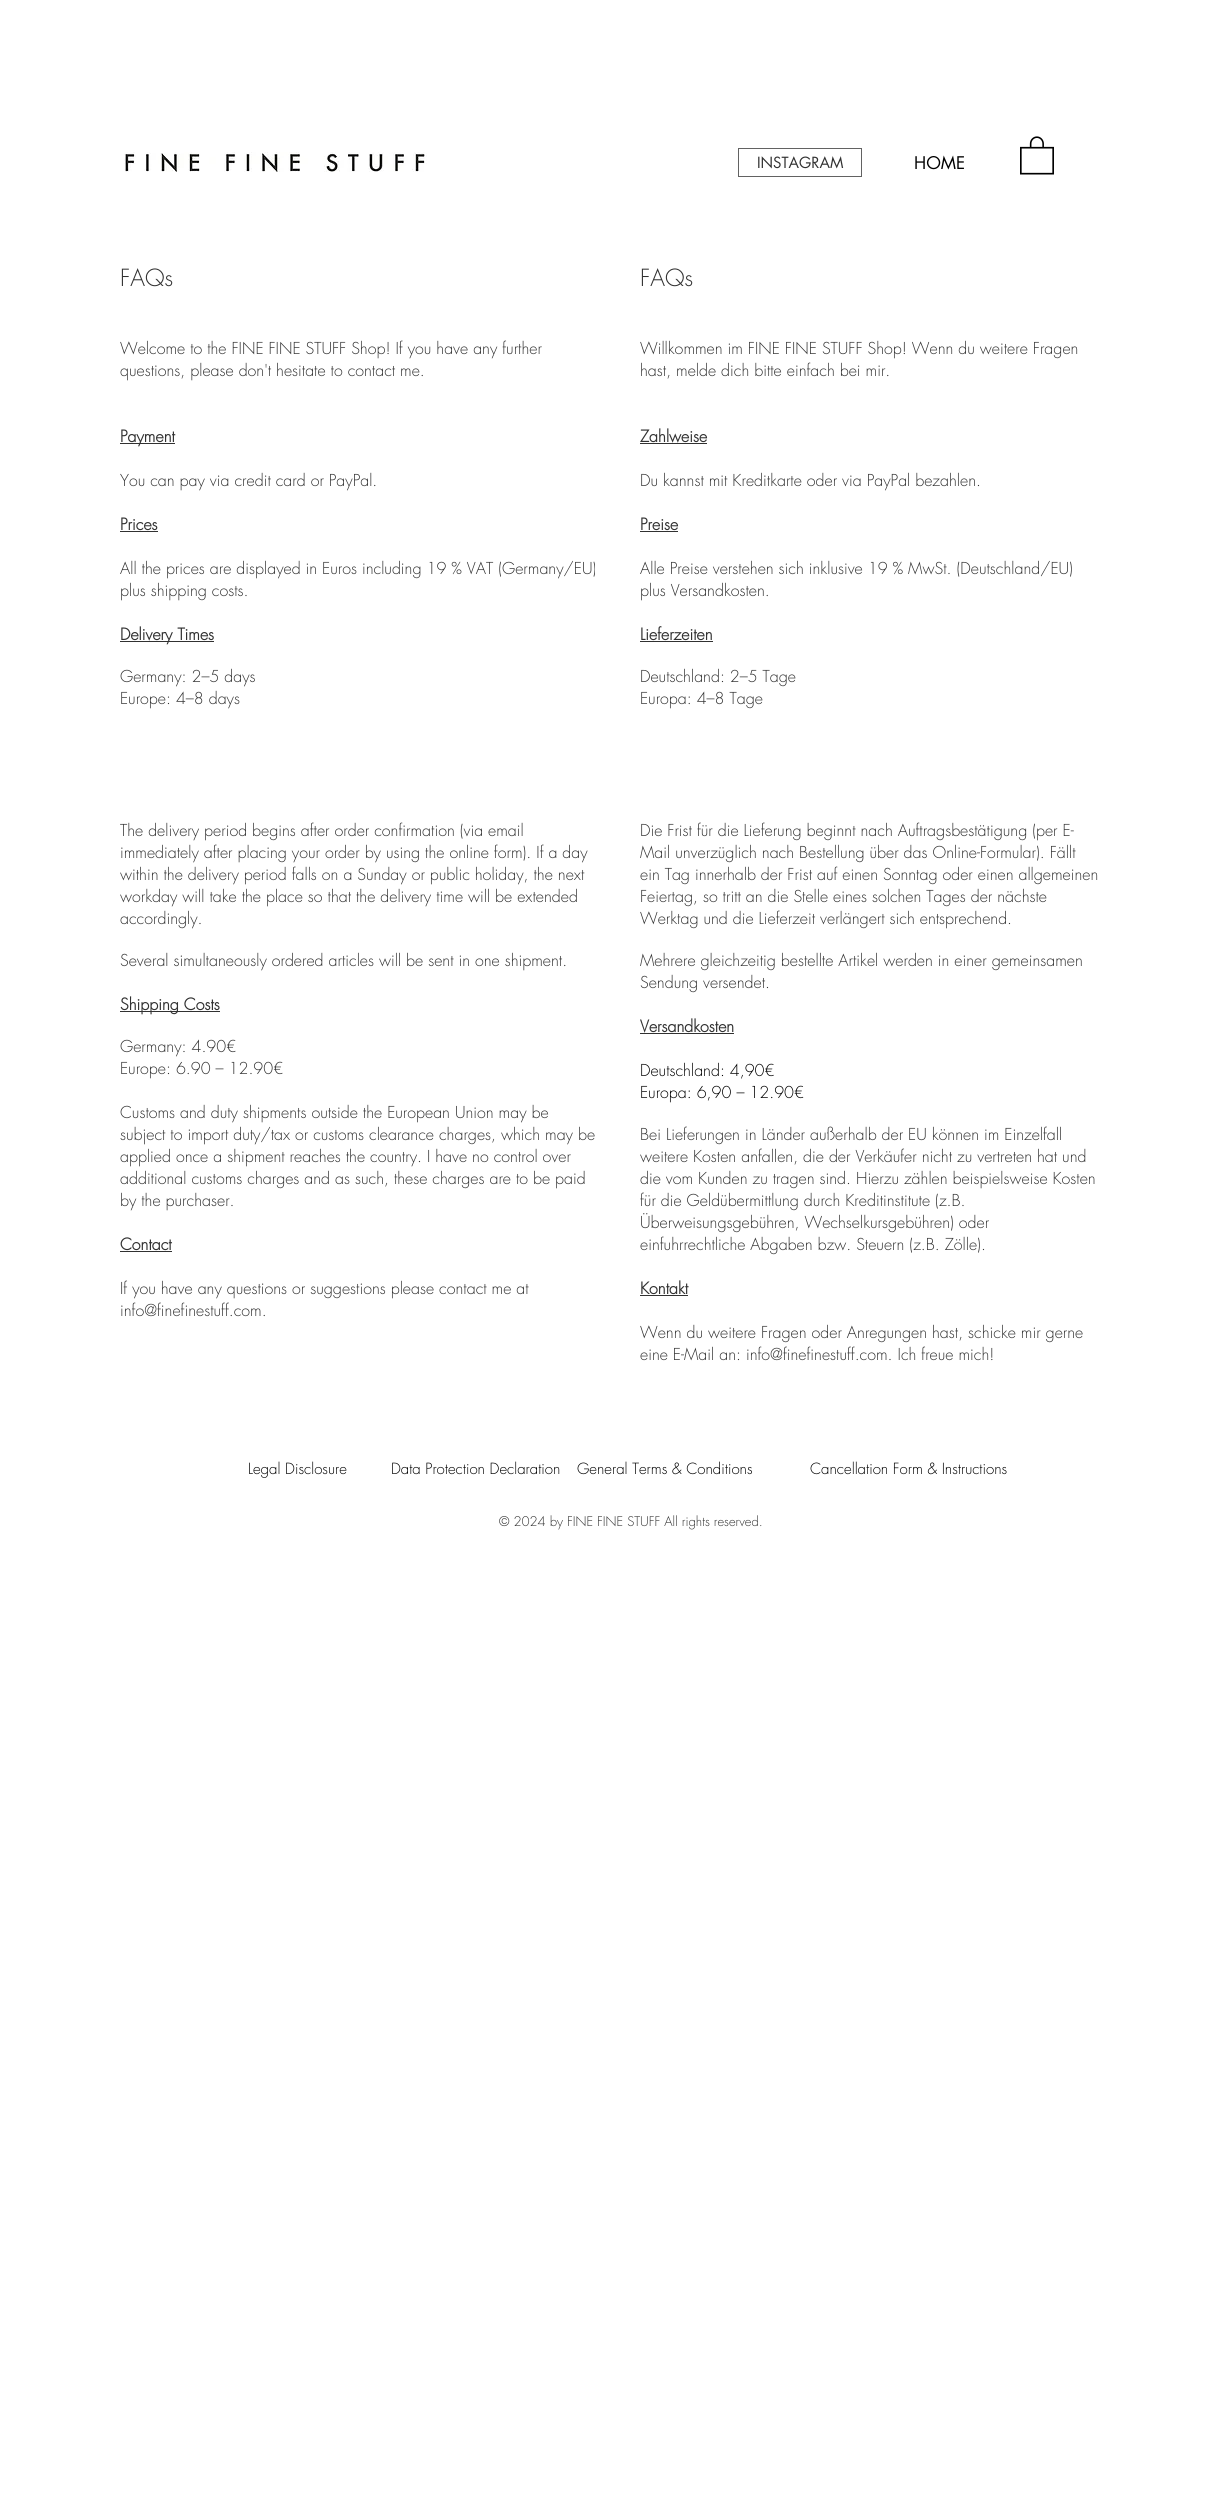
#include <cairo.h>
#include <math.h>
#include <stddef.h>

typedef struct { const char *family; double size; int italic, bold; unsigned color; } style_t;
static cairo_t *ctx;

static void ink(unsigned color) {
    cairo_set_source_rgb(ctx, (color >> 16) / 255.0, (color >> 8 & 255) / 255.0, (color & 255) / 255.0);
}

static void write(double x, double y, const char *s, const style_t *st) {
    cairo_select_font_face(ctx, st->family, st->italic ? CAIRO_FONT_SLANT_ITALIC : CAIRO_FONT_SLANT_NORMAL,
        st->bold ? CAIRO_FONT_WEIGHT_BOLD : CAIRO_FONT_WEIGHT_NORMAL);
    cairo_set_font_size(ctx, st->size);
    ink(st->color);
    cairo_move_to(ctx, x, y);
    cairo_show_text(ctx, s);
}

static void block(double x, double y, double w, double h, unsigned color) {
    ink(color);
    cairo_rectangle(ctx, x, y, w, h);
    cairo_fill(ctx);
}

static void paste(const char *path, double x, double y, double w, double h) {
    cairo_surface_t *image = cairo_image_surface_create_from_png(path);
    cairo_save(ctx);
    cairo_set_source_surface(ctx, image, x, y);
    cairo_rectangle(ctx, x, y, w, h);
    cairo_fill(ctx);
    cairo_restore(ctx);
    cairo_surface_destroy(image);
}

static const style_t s1 = {"futura", 15, 0, 0, 0x313131};
static const style_t s2 = {"futura", 17, 0, 0, 0x000000};
static const style_t s3 = {"futura Light", 23, 0, 0, 0x313131};
static const style_t s4 = {"futura Light", 16, 0, 0, 0x313131};
static const style_t s5 = {"futura", 16, 0, 1, 0x313131};
static const style_t s6 = {"futura Light", 16, 0, 0, 0x000000};
static const style_t s7 = {"futura Light", 15, 0, 0, 0x000000};
static const style_t s8 = {"futura Light", 13, 0, 0, 0x313131};

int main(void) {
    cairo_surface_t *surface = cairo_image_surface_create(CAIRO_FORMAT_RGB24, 1220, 2516);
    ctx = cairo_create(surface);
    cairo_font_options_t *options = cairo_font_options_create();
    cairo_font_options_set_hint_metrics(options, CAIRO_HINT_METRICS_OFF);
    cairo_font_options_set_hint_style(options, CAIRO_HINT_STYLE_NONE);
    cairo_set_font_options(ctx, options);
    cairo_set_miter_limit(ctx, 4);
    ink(0xffffff);
    cairo_paint(ctx);
    paste("pic1.png", 124, 152, 303, 20);
    cairo_rectangle(ctx, 738.5, 148.5, 123, 28);
    ink(0x626262);
    cairo_set_line_width(ctx, 1);
    cairo_stroke(ctx);
    write(757, 168, "INSTAGRAM", &s1);
    write(914, 169, "HOME", &s2);
    paste("pic2.png", 1020, 136, 34, 39);
    write(120, 286, "FAQs", &s3);
    write(120, 354, "Welcome to the FINE FINE STUFF Shop! If you have any further", &s4);
    write(120, 376, "questions, please don't hesitate to contact me.", &s4);
    block(120, 443, 55, 1, 0x313131);
    write(120, 442, "Payment", &s5);
    write(120, 486, "You can pay via credit card or PayPal.", &s4);
    write(120, 530, "Prices", &s5);
    block(120, 531, 38, 1, 0x313131);
    write(120, 574, "All the prices are displayed in Euros including 19 % VAT (Germany/EU)", &s4);
    write(120, 596, "plus shipping costs.", &s4);
    block(120, 641, 94, 1, 0x313131);
    write(120, 640, "Delivery Times", &s5);
    write(120, 682, "Germany: 2–5 days", &s4);
    write(120, 704, "Europe: 4–8 days", &s4);
    write(120, 836, "The delivery period begins after order confirmation (via email", &s4);
    write(120, 858, "immediately after placing your order by using the online form). If a day", &s4);
    write(120, 880, "within the delivery period falls on a Sunday or public holiday, the next", &s4);
    write(120, 902, "workday will take the place so that the delivery time will be extended", &s4);
    write(120, 924, "accordingly.", &s4);
    write(120, 966, "Several simultaneously ordered articles will be sent in one shipment.", &s4);
    block(120, 1011, 100, 1, 0x313131);
    write(120, 1010, "Shipping Costs", &s5);
    write(120, 1052, "Germany: 4.90€", &s4);
    write(120, 1074, "Europe: 6.90 – 12.90€", &s4);
    write(120, 1118, "Customs and duty shipments outside the European Union may be", &s4);
    write(120, 1140, "subject to import duty/tax or customs clearance charges, which may be", &s4);
    write(120, 1162, "applied once a shipment reaches the country. I have no control over", &s4);
    write(120, 1184, "additional customs charges and as such, these charges are to be paid", &s4);
    write(120, 1206, "by the purchaser.", &s4);
    write(120, 1250, "Contact", &s5);
    block(120, 1251, 52, 1, 0x313131);
    write(120, 1294, "If you have any questions or suggestions please contact me at", &s4);
    write(120, 1316, "info@finefinestuff.com.", &s4);
    write(640, 286, "FAQs", &s3);
    write(640, 354, "Willkommen im FINE FINE STUFF Shop! Wenn du weitere Fragen", &s4);
    write(640, 376, "hast, melde dich bitte einfach bei mir.", &s4);
    write(640, 442, "Zahlweise", &s5);
    block(640, 443, 67, 1, 0x313131);
    write(640, 486, "Du kannst mit Kreditkarte oder via PayPal bezahlen.", &s4);
    write(640, 530, "Preise", &s5);
    block(640, 531, 38, 1, 0x313131);
    write(640, 574, "Alle Preise verstehen sich inklusive 19 % MwSt. (Deutschland/EU)", &s4);
    write(640, 596, "plus Versandkosten.", &s4);
    write(640, 640, "Lieferzeiten", &s5);
    block(640, 641, 73, 1, 0x313131);
    write(640, 682, "Deutschland: 2–5 Tage", &s4);
    write(640, 704, "Europa: 4–8 Tage", &s4);
    write(640, 836, "Die Frist für die Lieferung beginnt nach Auftragsbestätigung (per E-", &s4);
    write(640, 858, "Mail unverzüglich nach Bestellung über das Online-Formular). Fällt", &s4);
    write(640, 880, "ein Tag innerhalb der Frist auf einen Sonntag oder einen allgemeinen", &s4);
    write(640, 902, "Feiertag, so tritt an die Stelle eines solchen Tages der nächste", &s4);
    write(640, 924, "Werktag und die Lieferzeit verlängert sich entsprechend.", &s4);
    write(640, 966, "Mehrere gleichzeitig bestellte Artikel werden in einer gemeinsamen", &s4);
    write(640, 988, "Sendung versendet.", &s4);
    write(640, 1032, "Versandkosten", &s5);
    block(640, 1033, 94, 1, 0x313131);
    write(640, 1076, "Deutschland: 4,90€", &s6);
    write(640, 1098, "Europa: 6,90 – 12.90€", &s6);
    write(640, 1140, "Bei Lieferungen in Länder außerhalb der EU können im Einzelfall", &s4);
    write(640, 1162, "weitere Kosten anfallen, die der Verkäufer nicht zu vertreten hat und", &s4);
    write(640, 1184, "die vom Kunden zu tragen sind. Hierzu zählen beispielsweise Kosten", &s4);
    write(640, 1206, "für die Geldübermittlung durch Kreditinstitute (z.B.", &s4);
    write(640, 1228, "Überweisungsgebühren, Wechselkursgebühren) oder", &s4);
    write(640, 1250, "einfuhrrechtliche Abgaben bzw. Steuern (z.B. Zölle).", &s4);
    write(640, 1294, "Kontakt", &s5);
    block(640, 1295, 48, 1, 0x313131);
    write(640, 1338, "Wenn du weitere Fragen oder Anregungen hast, schicke mir gerne", &s4);
    write(640, 1360, "eine E-Mail an: info@finefinestuff.com. Ich freue mich!", &s4);
    write(248, 1474, "Legal Disclosure", &s7);
    write(391, 1474, "Data Protection Declaration", &s7);
    write(577, 1474, "General Terms & Conditions", &s7);
    write(810, 1474, "Cancellation Form & Instructions", &s7);
    write(499, 1526, "© 2024 by FINE FINE STUFF All rights reserved.", &s8);
    cairo_surface_write_to_png(surface, "screenshot.png");
    cairo_font_options_destroy(options);
    cairo_destroy(ctx);
    cairo_surface_destroy(surface);
    return 0;
}
